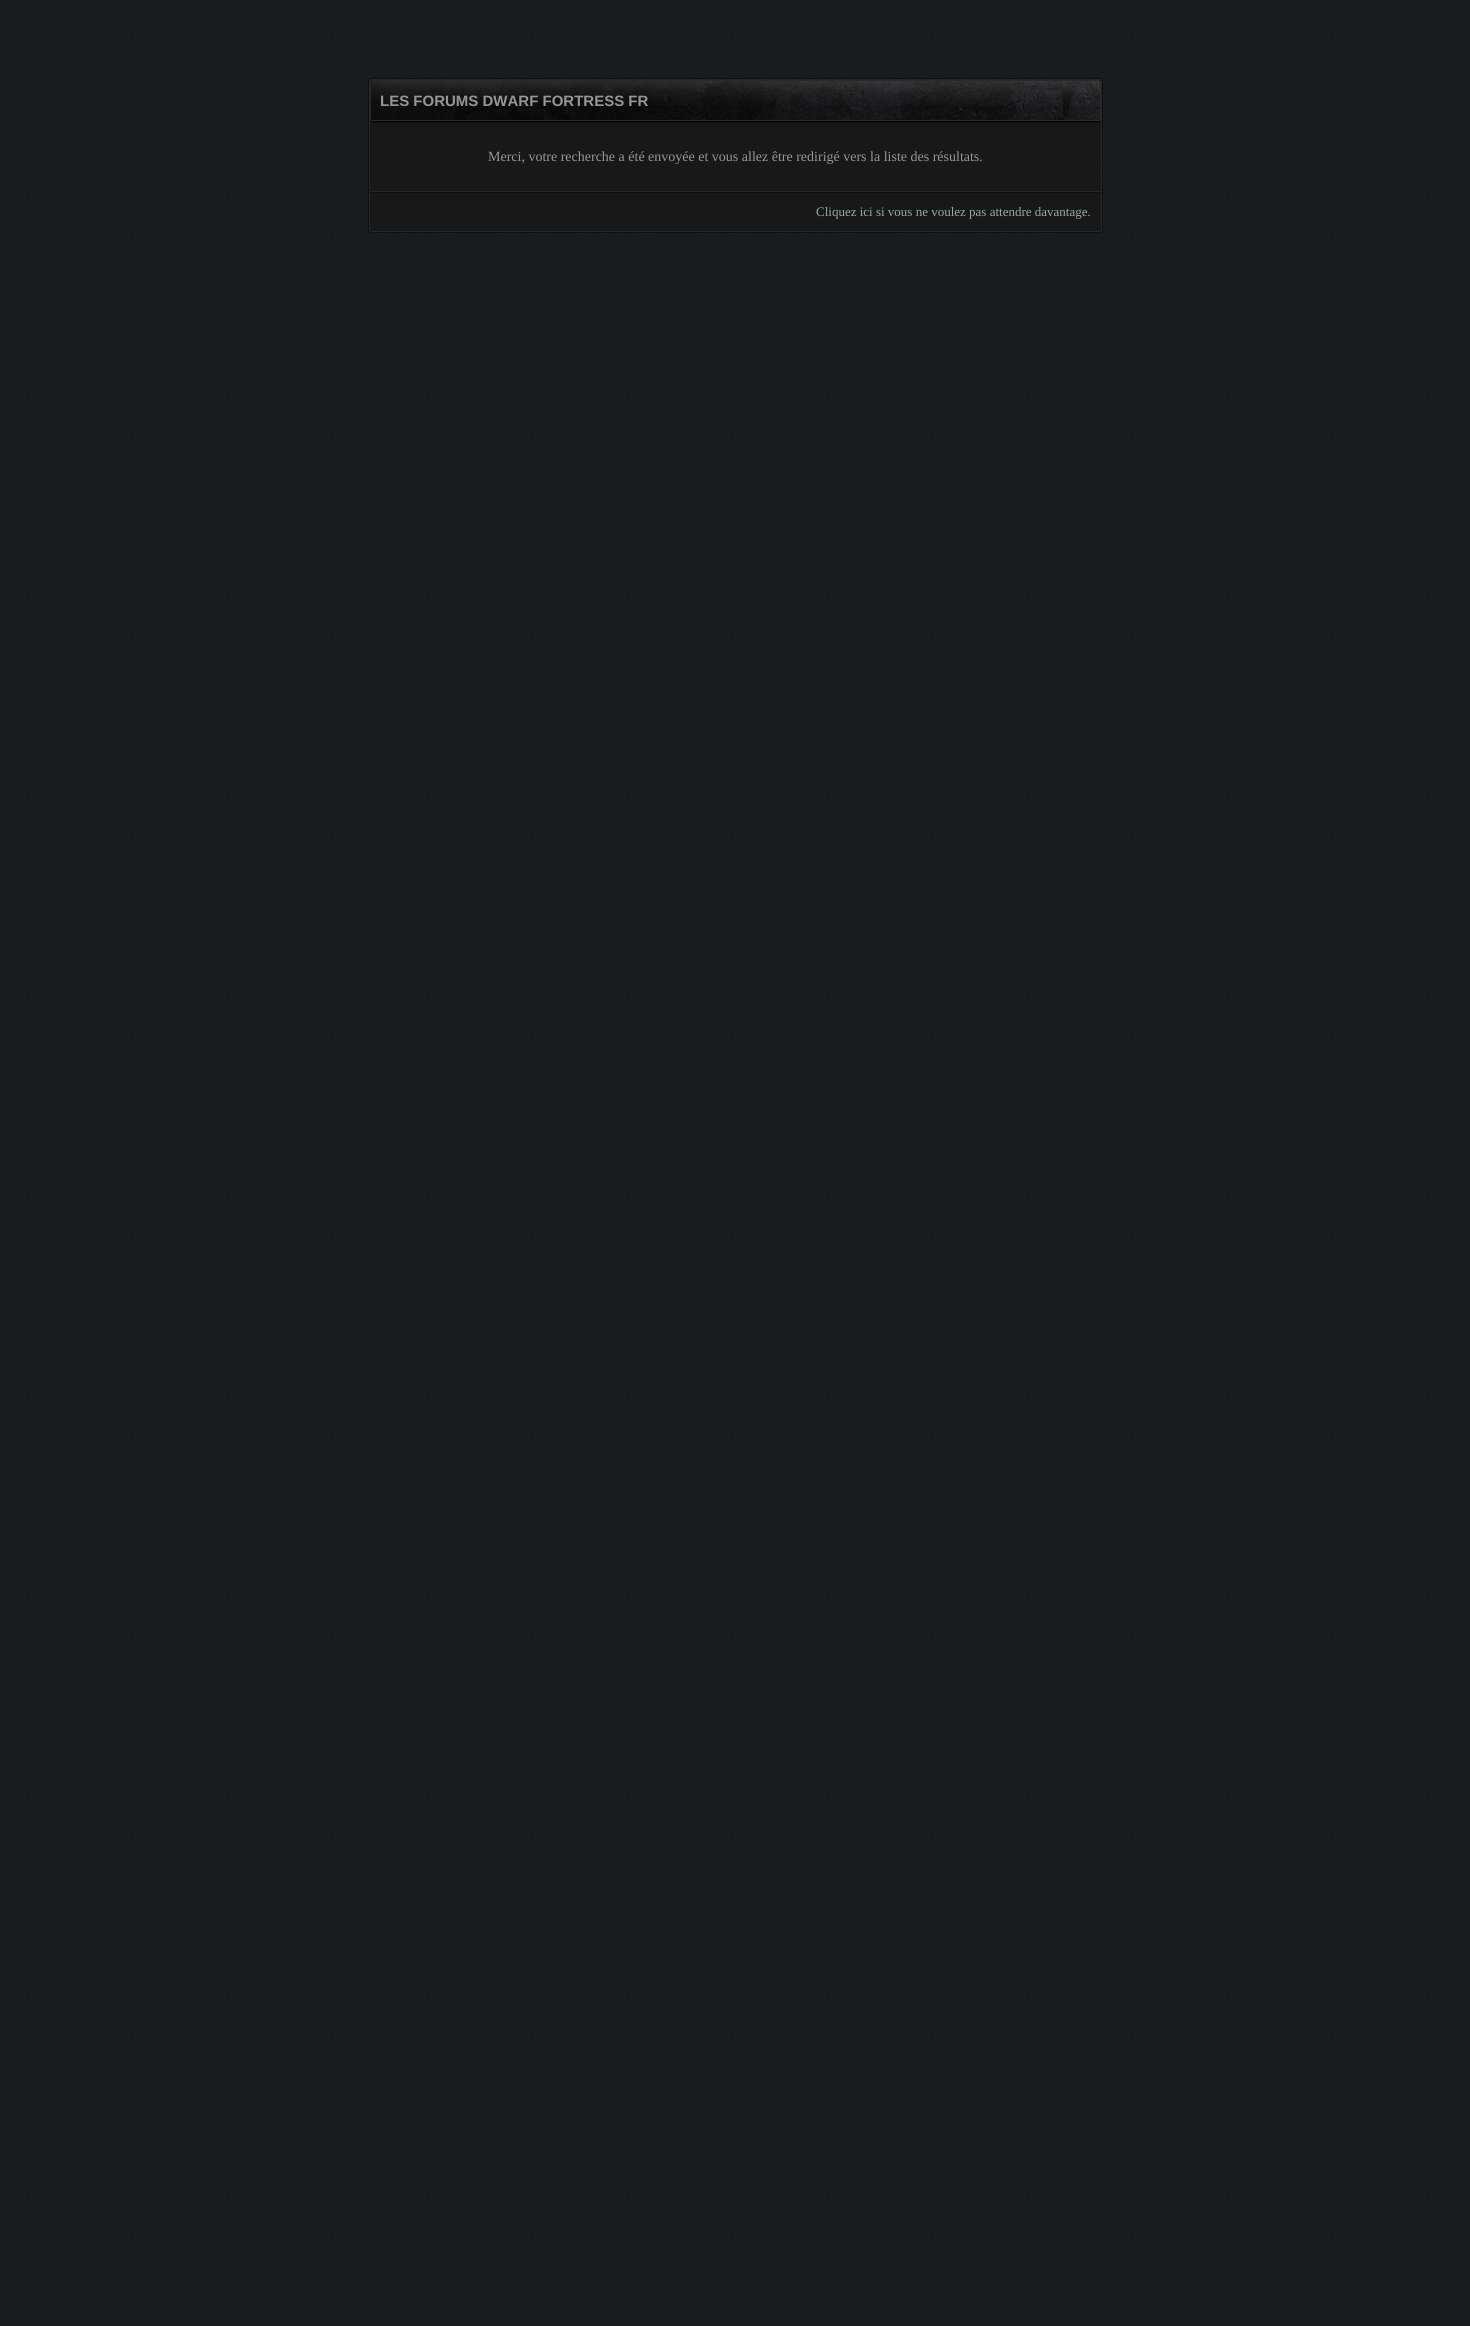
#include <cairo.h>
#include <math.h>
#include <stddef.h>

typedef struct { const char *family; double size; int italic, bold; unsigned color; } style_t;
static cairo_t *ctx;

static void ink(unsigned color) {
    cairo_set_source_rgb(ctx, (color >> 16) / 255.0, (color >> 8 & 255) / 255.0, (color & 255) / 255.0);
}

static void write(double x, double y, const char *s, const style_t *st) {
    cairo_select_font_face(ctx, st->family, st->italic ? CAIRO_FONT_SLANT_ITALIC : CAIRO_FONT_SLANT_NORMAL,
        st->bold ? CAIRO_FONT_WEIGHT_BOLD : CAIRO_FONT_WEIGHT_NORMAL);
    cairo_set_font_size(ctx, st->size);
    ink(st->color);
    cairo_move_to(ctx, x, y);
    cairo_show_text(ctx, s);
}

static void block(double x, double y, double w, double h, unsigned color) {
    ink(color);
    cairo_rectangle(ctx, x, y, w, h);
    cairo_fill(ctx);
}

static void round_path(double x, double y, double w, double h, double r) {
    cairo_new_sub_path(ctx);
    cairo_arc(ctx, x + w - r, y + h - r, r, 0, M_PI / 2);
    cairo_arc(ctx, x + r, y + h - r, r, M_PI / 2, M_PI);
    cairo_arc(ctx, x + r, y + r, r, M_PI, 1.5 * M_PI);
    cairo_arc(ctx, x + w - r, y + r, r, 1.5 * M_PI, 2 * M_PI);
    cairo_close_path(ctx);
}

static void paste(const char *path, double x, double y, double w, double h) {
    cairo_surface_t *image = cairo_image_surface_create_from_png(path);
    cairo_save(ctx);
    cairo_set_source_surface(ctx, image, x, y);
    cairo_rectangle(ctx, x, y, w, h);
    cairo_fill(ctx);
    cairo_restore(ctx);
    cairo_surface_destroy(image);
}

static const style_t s1 = {"Liberation Sans", 15, 0, 1, 0x969696};
static const style_t s2 = {"Liberation Serif", 14, 0, 0, 0x969696};
static const style_t s3 = {"Liberation Serif", 13, 0, 0, 0x91ad9f};

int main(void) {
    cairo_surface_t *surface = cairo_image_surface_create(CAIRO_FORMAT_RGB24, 1470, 2326);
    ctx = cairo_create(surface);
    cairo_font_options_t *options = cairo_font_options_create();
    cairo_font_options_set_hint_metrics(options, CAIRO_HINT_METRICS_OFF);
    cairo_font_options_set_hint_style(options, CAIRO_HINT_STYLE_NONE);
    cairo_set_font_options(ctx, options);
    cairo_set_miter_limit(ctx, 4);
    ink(0xffffff);
    cairo_paint(ctx);
    paste("pic1.png", 0, 0, 1470, 2326);
    ink(0x181818);
    round_path(369.5, 79.5, 732, 152, 1.5);
    cairo_fill_preserve(ctx);
    ink(0x262626);
    cairo_set_line_width(ctx, 1);
    cairo_stroke(ctx);
    round_path(368.5, 78.5, 734, 154, 2.5);
    ink(0x101010);
    cairo_stroke(ctx);
    paste("pic2.png", 370, 80, 731, 40);
    cairo_new_path(ctx);
    cairo_move_to(ctx, 373, 80.5);
    cairo_line_to(ctx, 1098, 80.5);
    cairo_curve_to(ctx, 1099.5, 80.5, 1100.5, 81.5, 1100.5, 83);
    cairo_line_to(ctx, 1100.5, 120.5);
    cairo_line_to(ctx, 370.5, 120.5);
    cairo_line_to(ctx, 370.5, 83);
    cairo_curve_to(ctx, 370.5, 81.5, 371.5, 80.5, 373, 80.5);
    cairo_close_path(ctx);
    ink(0x2a2a2a);
    cairo_stroke(ctx);
    block(370, 121, 731, 1, 0x070707);
    write(380, 106, "LES FORUMS DWARF FORTRESS FR", &s1);
    block(370, 122, 731, 1, 0x101010);
    block(370, 191, 731, 1, 0x262626);
    write(488, 161, "Merci, votre recherche a été envoyée et vous allez être redirigé vers la liste des résultats.", &s2);
    block(370, 192, 731, 1, 0x101010);
    write(816, 216, "Cliquez ici si vous ne voulez pas attendre davantage.", &s3);
    cairo_surface_write_to_png(surface, "screenshot.png");
    cairo_font_options_destroy(options);
    cairo_destroy(ctx);
    cairo_surface_destroy(surface);
    return 0;
}
